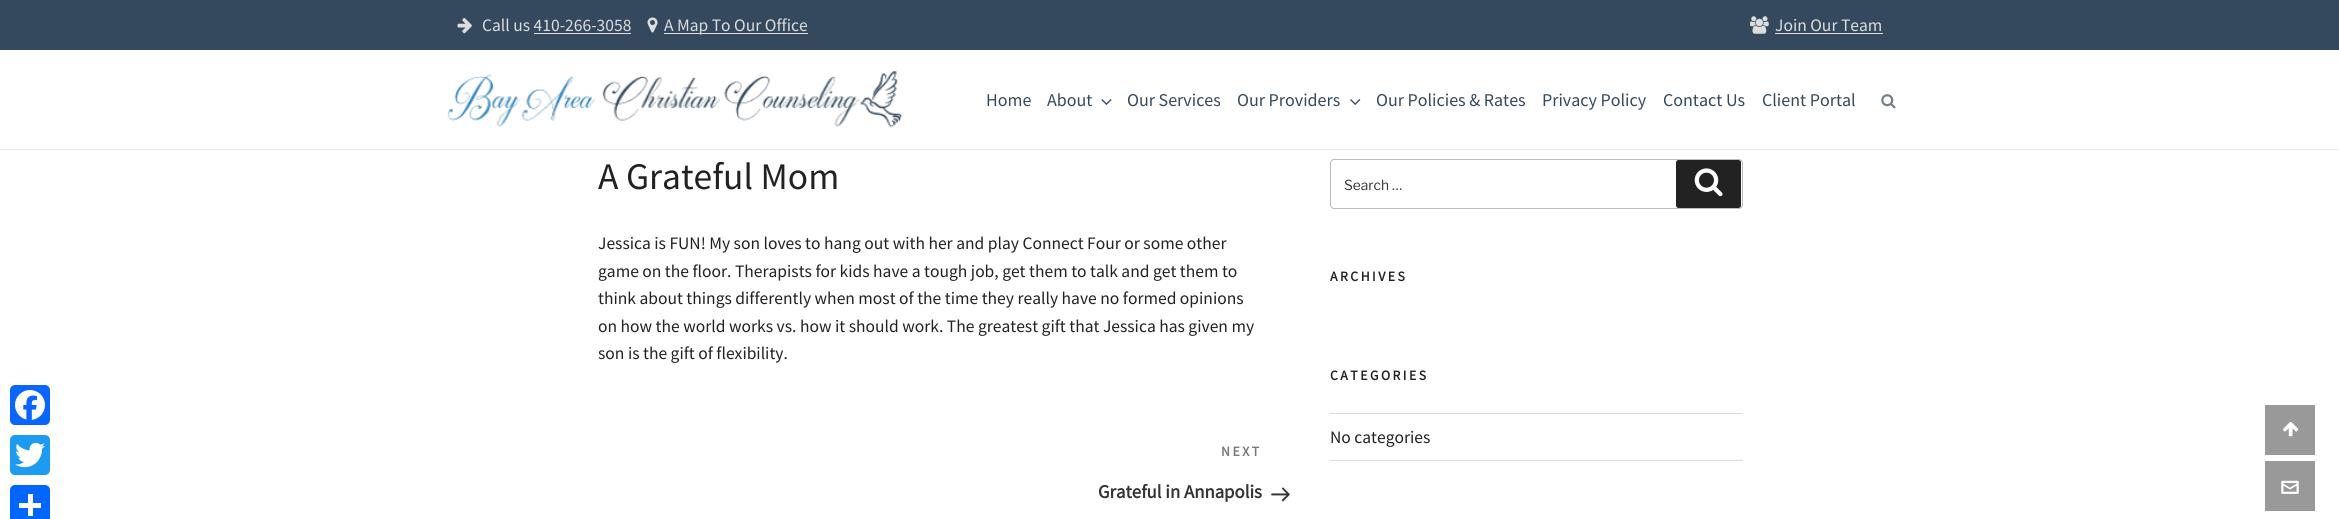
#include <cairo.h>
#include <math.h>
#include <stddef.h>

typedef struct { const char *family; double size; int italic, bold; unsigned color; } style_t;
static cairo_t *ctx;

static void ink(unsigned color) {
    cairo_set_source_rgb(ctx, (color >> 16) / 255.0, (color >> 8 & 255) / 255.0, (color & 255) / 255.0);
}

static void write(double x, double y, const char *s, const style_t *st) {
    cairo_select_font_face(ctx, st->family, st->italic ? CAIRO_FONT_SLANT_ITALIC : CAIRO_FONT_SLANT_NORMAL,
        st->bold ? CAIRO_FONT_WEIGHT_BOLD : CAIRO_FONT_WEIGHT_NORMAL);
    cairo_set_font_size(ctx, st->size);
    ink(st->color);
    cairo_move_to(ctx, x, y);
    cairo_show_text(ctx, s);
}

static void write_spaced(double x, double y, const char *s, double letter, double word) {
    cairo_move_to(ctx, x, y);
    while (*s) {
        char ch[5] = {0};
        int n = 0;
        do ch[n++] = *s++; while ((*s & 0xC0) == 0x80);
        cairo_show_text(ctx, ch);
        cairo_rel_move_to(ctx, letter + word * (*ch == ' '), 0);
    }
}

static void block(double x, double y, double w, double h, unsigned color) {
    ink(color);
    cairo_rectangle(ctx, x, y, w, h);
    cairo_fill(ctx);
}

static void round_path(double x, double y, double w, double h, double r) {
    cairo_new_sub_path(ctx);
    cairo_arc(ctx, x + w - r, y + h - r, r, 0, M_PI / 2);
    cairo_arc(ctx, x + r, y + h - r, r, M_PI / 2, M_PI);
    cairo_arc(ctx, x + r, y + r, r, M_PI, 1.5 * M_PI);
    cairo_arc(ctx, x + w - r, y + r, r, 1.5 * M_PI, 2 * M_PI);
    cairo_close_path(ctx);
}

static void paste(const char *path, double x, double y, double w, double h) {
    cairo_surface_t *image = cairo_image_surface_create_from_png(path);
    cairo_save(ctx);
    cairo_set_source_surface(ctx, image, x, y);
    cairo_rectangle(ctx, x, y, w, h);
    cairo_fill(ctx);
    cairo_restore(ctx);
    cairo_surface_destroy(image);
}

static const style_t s1 = {"Source Sans Pro", 17.5, 0, 0, 0xdddddd};
static const style_t s2 = {"Source Sans Pro", 18, 0, 0, 0x34495e};
static const style_t s3 = {"Source Sans Pro", 37.5, 0, 0, 0x222222};
static const style_t s4 = {"Source Sans Pro", 17.5, 0, 0, 0x222222};
static const style_t s5 = {"Source Sans Pro", 18.75, 0, 1, 0x333333};
static const style_t s6 = {"Libre Franklin", 13.75, 0, 0, 0x333333};

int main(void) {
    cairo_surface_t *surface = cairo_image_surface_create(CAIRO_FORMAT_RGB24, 2339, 519);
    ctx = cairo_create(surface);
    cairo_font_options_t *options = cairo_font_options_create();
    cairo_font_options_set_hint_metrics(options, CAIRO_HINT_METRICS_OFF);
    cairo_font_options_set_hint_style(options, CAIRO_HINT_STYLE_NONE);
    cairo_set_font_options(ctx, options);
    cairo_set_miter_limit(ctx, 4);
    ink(0xffffff);
    cairo_paint(ctx);
    block(0, 0, 2339, 50, 0x34495e);
    paste("pic1.png", 457, 18, 15, 16);
    write(482, 31, "Call us 410-266-3058", &s1);
    block(534, 33, 97, 1, 0xdddddd);
    paste("pic2.png", 647, 17, 11, 16);
    block(664, 33, 144, 1, 0xdddddd);
    write(664, 31, "A Map To Our Office", &s1);
    paste("pic3.png", 1750, 16, 19, 18);
    write(1775, 31, "Join Our Team", &s1);
    block(1775, 33, 108, 1, 0xdddddd);
    block(0, 149, 2339, 1, 0xebebeb);
    paste("pic4.png", 447, 71, 455, 57);
    write(986, 106, "Home", &s2);
    write(1047, 106, "About", &s2);
    paste("pic5.png", 1101, 99, 11, 6);
    write(1127, 106, "Our Services", &s2);
    write(1237, 106, "Our Providers", &s2);
    paste("pic6.png", 1350, 99, 11, 6);
    write(1376, 106, "Our Policies & Rates", &s2);
    write(1542, 106, "Privacy Policy", &s2);
    write(1663, 106, "Contact Us", &s2);
    write(1762, 106, "Client Portal", &s2);
    paste("pic7.png", 1881, 94, 15, 15);
    ink(0x0866ff);
    round_path(10, 385, 40, 40, 5);
    cairo_fill(ctx);
    paste("pic8.png", 15, 390, 30, 30);
    ink(0x1d9bf0);
    round_path(10, 435, 40, 40, 5);
    cairo_fill(ctx);
    paste("pic9.png", 15, 442, 30, 26);
    ink(0x0166ff);
    round_path(10, 485, 40, 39, 5);
    cairo_fill(ctx);
    block(28, 494, 5, 22, 0xffffff);
    block(19, 503, 22, 5, 0xffffff);
    write(598, 189, "A Grateful Mom", &s3);
    write(598, 249, "Jessica is FUN! My son loves to hang out with her and play Connect Four or some other", &s4);
    write(598, 277, "game on the floor. Therapists for kids have a tough job, get them to talk and get them to", &s4);
    write(598, 304, "think about things differently when most of the time they really have no formed opinions", &s4);
    write(598, 332, "on how the world works vs. how it should work. The greatest gift that Jessica has given my", &s4);
    write(598, 359, "son is the gift of flexibility.", &s4);
    cairo_select_font_face(ctx, "Source Sans Pro", CAIRO_FONT_SLANT_NORMAL, CAIRO_FONT_WEIGHT_BOLD);
    cairo_set_font_size(ctx, 13.75);
    ink(0x767676);
    write_spaced(1221, 456, "NEXT", 2.5, 0);
    write(1098, 498, "Grateful in Annapolis", &s5);
    paste("pic10.png", 1271, 487, 19, 15);
    round_path(1330.5, 159.5, 412, 49, 3.5);
    ink(0xbbbbbb);
    cairo_set_line_width(ctx, 1);
    cairo_stroke(ctx);
    write(1344, 190, "Search …", &s6);
    ink(0x222222);
    round_path(1676, 160, 65, 48, 2.5);
    cairo_fill(ctx);
    paste("pic11.png", 1694, 168, 29, 28);
    cairo_select_font_face(ctx, "Source Sans Pro", CAIRO_FONT_SLANT_NORMAL, CAIRO_FONT_WEIGHT_BOLD);
    write_spaced(1330, 281, "ARCHIVES", 2.5, 0);
    write_spaced(1330, 380, "CATEGORIES", 2.5, 0);
    block(1330, 413, 413, 1, 0xdddddd);
    block(1330, 460, 413, 1, 0xdddddd);
    write(1330, 443, "No categories", &s4);
    block(2265, 405, 50, 50, 0x999999);
    paste("pic12.png", 2283, 421, 16, 16);
    block(2265, 461, 50, 50, 0x999999);
    paste("pic13.png", 2281, 480, 18, 14);
    cairo_surface_write_to_png(surface, "screenshot.png");
    cairo_font_options_destroy(options);
    cairo_destroy(ctx);
    cairo_surface_destroy(surface);
    return 0;
}
